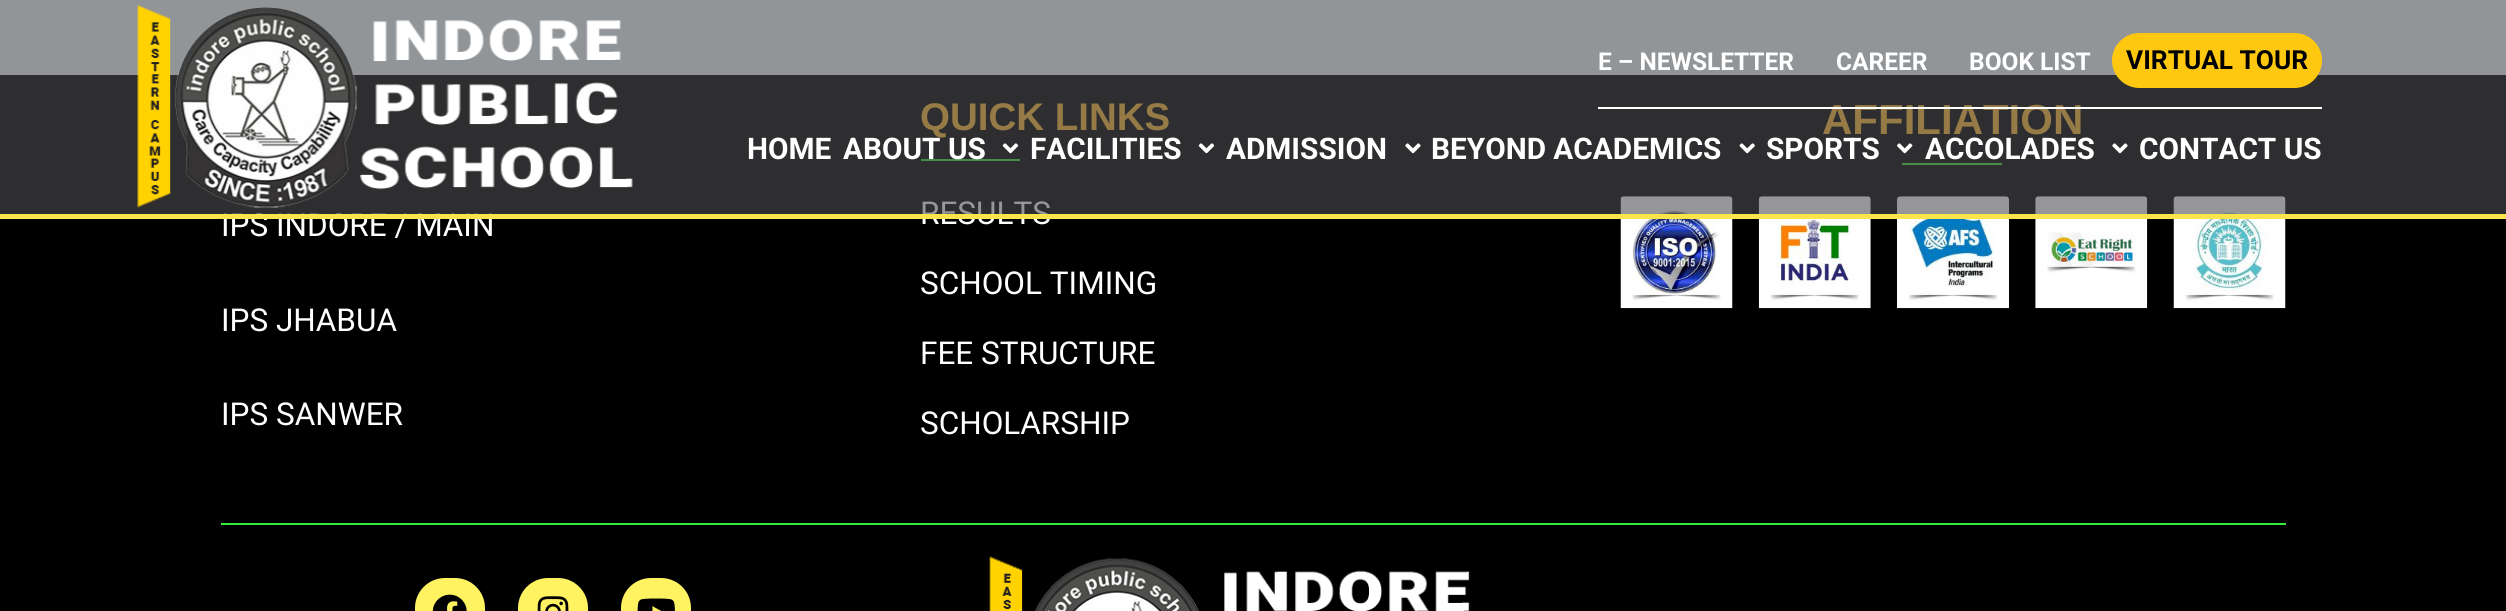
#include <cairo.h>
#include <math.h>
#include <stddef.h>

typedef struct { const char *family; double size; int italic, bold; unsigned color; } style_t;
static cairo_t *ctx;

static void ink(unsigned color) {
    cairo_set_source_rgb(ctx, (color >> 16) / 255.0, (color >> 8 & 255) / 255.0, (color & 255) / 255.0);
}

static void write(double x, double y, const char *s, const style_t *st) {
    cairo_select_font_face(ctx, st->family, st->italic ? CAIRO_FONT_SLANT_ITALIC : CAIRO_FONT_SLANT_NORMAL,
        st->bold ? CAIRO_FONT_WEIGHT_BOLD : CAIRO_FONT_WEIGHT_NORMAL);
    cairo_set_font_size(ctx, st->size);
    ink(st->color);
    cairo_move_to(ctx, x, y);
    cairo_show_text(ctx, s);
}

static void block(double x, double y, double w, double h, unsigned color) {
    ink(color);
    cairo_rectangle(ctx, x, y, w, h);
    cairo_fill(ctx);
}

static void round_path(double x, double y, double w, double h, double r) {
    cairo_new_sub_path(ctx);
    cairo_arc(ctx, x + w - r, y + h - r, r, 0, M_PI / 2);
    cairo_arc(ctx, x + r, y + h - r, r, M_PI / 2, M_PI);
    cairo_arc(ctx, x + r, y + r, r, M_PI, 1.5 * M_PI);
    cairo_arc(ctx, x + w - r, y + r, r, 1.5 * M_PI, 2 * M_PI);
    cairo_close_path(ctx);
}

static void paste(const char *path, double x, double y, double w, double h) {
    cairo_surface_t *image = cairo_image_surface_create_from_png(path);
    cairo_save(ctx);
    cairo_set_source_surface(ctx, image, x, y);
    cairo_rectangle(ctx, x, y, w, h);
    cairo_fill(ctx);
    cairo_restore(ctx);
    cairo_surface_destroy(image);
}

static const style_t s1 = {"Liberation Sans", 38.5, 0, 1, 0xffbd39};
static const style_t s2 = {"Roboto", 31.5, 0, 0, 0xffffff};
static const style_t s3 = {"Liberation Sans", 42, 0, 1, 0xffbd39};
static const style_t s4 = {"Roboto", 24.5, 0, 1, 0xffffff};
static const style_t s5 = {"Roboto", 26.25, 0, 1, 0x000000};
static const style_t s6 = {"Roboto", 29.75, 0, 1, 0xffffff};

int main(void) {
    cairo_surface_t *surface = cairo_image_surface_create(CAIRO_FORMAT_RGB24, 2506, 611);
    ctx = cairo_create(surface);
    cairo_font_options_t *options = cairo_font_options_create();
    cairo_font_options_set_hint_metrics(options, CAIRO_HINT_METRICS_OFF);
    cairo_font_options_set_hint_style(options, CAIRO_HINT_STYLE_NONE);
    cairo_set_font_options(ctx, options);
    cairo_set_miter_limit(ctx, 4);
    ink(0xf6fdfe);
    cairo_paint(ctx);
    block(0, 75, 2506, 536, 0x000000);
    write(920, 130, "QUICK LINKS", &s1);
    block(921, 159, 99, 2, 0x35ec3e);
    write(920, 224, "RESULTS", &s2);
    write(1822, 134, "AFFILIATION", &s3);
    block(1902, 163, 100, 2, 0x35ec3e);
    paste("pic6.png", 1620, 196, 113, 113);
    paste("pic7.png", 1758, 196, 113, 113);
    paste("pic8.png", 1897, 196, 112, 113);
    paste("pic9.png", 2035, 196, 113, 113);
    paste("pic10.png", 2173, 196, 113, 113);
    write(221, 236, "IPS INDORE / MAIN", &s2);
    cairo_set_source_rgba(ctx, 0.306, 0.306, 0.322, 0.59);
    cairo_rectangle(ctx, 0, 0, 2506, 214);
    cairo_fill(ctx);
    block(0, 214, 2506, 5, 0xfbe54b);
    paste("pic1.png", 137, 5, 496, 203);
    write(1598, 70, "E – NEWSLETTER", &s4);
    write(1836, 70, "CAREER", &s4);
    write(1969, 70, "BOOK LIST", &s4);
    ink(0xffc810);
    round_path(2112, 33, 210, 55, 27.5);
    cairo_fill(ctx);
    write(2126, 69, "VIRTUAL TOUR", &s5);
    block(1598, 107, 724, 2, 0xffffff);
    write(747, 159, "HOME", &s6);
    write(843, 159, "ABOUT US", &s6);
    paste("pic2.png", 1002, 143, 17, 11);
    write(1030, 159, "FACILITIES", &s6);
    paste("pic2.png", 1198, 143, 17, 11);
    write(1226, 159, "ADMISSION", &s6);
    paste("pic3.png", 1405, 143, 16, 11);
    write(1431, 159, "BEYOND ACADEMICS", &s6);
    paste("pic4.png", 1739, 143, 16, 11);
    write(1766, 159, "SPORTS", &s6);
    paste("pic5.png", 1897, 143, 16, 11);
    write(1925, 159, "ACCOLADES", &s6);
    paste("pic3.png", 2112, 143, 16, 11);
    write(2139, 159, "CONTACT US", &s6);
    write(920, 294, "SCHOOL TIMING", &s2);
    write(920, 364, "FEE STRUCTURE", &s2);
    write(920, 434, "SCHOLARSHIP", &s2);
    write(221, 331, "IPS JHABUA", &s2);
    write(221, 425, "IPS SANWER", &s2);
    block(221, 523, 2065, 2, 0x35ec3e);
    ink(0xfff362);
    round_path(415, 578, 70, 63, 30);
    cairo_fill(ctx);
    paste("pic11.png", 432, 594, 35, 17);
    round_path(518, 578, 70, 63, 30);
    cairo_fill(ctx);
    paste("pic12.png", 537, 596, 32, 15);
    round_path(621, 578, 70, 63, 30);
    cairo_fill(ctx);
    paste("pic13.png", 637, 598, 38, 13);
    paste("pic14.png", 989, 556, 481, 55);
    cairo_surface_write_to_png(surface, "screenshot.png");
    cairo_font_options_destroy(options);
    cairo_destroy(ctx);
    cairo_surface_destroy(surface);
    return 0;
}
